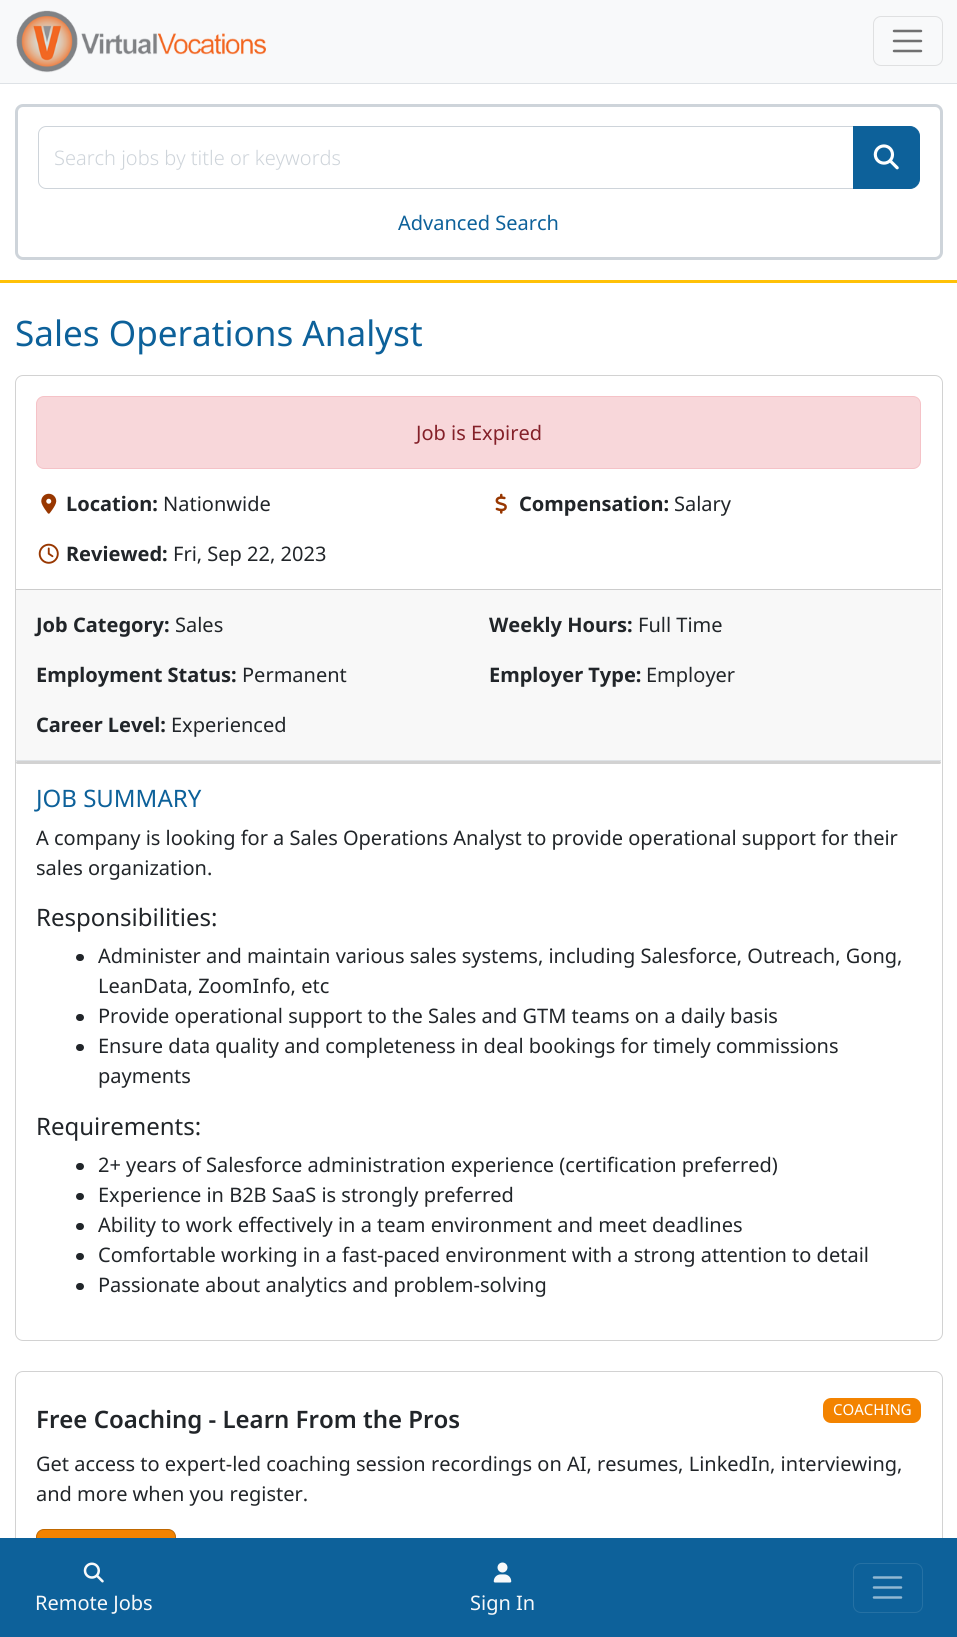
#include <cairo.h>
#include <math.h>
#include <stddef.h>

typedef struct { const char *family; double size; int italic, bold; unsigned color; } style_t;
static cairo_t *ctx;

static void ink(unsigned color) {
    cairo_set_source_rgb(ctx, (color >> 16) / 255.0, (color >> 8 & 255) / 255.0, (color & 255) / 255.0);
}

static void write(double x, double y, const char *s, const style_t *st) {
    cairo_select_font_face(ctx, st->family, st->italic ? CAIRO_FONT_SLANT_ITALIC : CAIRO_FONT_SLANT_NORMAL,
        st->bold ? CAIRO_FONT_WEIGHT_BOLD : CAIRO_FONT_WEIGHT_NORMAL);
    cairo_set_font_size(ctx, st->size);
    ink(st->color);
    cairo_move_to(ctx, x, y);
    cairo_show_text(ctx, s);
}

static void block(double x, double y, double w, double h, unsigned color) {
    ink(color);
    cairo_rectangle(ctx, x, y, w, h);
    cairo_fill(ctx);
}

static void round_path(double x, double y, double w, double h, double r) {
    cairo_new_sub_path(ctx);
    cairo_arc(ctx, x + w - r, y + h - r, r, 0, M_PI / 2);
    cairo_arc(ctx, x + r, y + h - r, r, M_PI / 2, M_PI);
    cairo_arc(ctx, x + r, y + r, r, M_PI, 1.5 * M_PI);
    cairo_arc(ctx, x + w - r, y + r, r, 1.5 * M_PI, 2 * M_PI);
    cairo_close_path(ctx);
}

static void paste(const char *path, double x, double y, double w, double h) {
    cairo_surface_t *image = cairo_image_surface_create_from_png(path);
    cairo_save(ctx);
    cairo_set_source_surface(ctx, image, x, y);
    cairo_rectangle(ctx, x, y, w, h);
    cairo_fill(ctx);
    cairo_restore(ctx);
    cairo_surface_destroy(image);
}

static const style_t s1 = {"Noto Sans Light", 20, 0, 0, 0xced4da};
static const style_t s2 = {"Noto Sans", 20, 0, 0, 0x0d619a};
static const style_t s3 = {"Noto Sans", 35.1, 0, 0, 0x0d619a};
static const style_t s4 = {"Noto Sans", 20, 0, 0, 0x842029};
static const style_t s5 = {"Noto Sans", 20, 0, 1, 0x212529};
static const style_t s6 = {"Noto Sans", 20, 0, 0, 0x212529};
static const style_t s7 = {"Noto Sans", 24, 0, 0, 0x0d619a};
static const style_t s8 = {"Noto Sans", 24, 0, 0, 0x212529};
static const style_t s9 = {"Noto Sans SemiBold", 24, 0, 0, 0x212529};
static const style_t s10 = {"Noto Sans", 15, 0, 0, 0xffffff};
static const style_t s11 = {"Noto Sans", 20, 0, 0, 0xf8f9fa};

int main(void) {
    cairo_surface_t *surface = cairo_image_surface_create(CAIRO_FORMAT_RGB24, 957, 1637);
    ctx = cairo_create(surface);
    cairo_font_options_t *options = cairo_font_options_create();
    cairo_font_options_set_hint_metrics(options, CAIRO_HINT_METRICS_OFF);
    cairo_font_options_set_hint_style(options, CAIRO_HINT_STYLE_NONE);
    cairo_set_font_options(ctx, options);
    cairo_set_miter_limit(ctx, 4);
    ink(0xffffff);
    cairo_paint(ctx);
    block(0, 0, 957, 83, 0xf8f9fa);
    block(0, 83, 957, 1, 0xdee2e6);
    paste("pic1.png", 16, 10, 250, 63);
    round_path(873.5, 16.5, 69, 49, 7.5);
    ink(0xdfe0e1);
    cairo_set_line_width(ctx, 1);
    cairo_stroke(ctx);
    cairo_new_path(ctx);
    cairo_move_to(ctx, 894, 31);
    cairo_line_to(ctx, 921, 31);
    cairo_move_to(ctx, 894, 41);
    cairo_line_to(ctx, 921, 41);
    cairo_move_to(ctx, 894, 51);
    cairo_line_to(ctx, 921, 51);
    ink(0x707071);
    cairo_set_line_width(ctx, 2.5);
    cairo_set_line_cap(ctx, CAIRO_LINE_CAP_ROUND);
    cairo_stroke(ctx);
    block(0, 280, 957, 3, 0xffc107);
    round_path(16.5, 105.5, 925, 153, 6.5);
    ink(0xced4da);
    cairo_set_line_width(ctx, 3);
    cairo_set_line_cap(ctx, CAIRO_LINE_CAP_BUTT);
    cairo_stroke(ctx);
    cairo_new_path(ctx);
    cairo_move_to(ctx, 46, 126.5);
    cairo_line_to(ctx, 853.5, 126.5);
    cairo_line_to(ctx, 853.5, 188.5);
    cairo_line_to(ctx, 46, 188.5);
    cairo_curve_to(ctx, 42, 188.5, 38.5, 185, 38.5, 181);
    cairo_line_to(ctx, 38.5, 134);
    cairo_curve_to(ctx, 38.5, 130, 42, 126.5, 46, 126.5);
    cairo_close_path(ctx);
    cairo_set_line_width(ctx, 1);
    cairo_stroke(ctx);
    write(54, 165, "Search jobs by title or keywords", &s1);
    ink(0x0d619a);
    cairo_new_path(ctx);
    cairo_move_to(ctx, 853.5, 126.5);
    cairo_line_to(ctx, 910, 126.5);
    cairo_curve_to(ctx, 915, 126.5, 919.5, 131, 919.5, 136);
    cairo_line_to(ctx, 919.5, 179);
    cairo_curve_to(ctx, 919.5, 184, 915, 188.5, 910, 188.5);
    cairo_line_to(ctx, 853.5, 188.5);
    cairo_close_path(ctx);
    cairo_fill_preserve(ctx);
    cairo_stroke(ctx);
    paste("pic2.png", 873, 144, 26, 26);
    write(398, 230, "Advanced Search", &s2);
    write(15, 346, "Sales Operations Analyst", &s3);
    round_path(15.5, 375.5, 927, 965, 7.5);
    ink(0xd2d2d2);
    cairo_stroke(ctx);
    ink(0xf8d7da);
    round_path(36.5, 396.5, 884, 72, 7.5);
    cairo_fill_preserve(ctx);
    ink(0xf5c2c7);
    cairo_stroke(ctx);
    write(416, 440, "Job is Expired", &s4);
    paste("pic3.png", 41, 493, 16, 21);
    write(66, 511, "Location:", &s5);
    write(163, 511, "Nationwide", &s6);
    paste("pic4.png", 495, 493, 12, 21);
    write(519, 511, "Compensation:", &s5);
    write(674, 511, "Salary", &s6);
    paste("pic5.png", 38, 543, 21, 21);
    write(66, 561, "Reviewed:", &s5);
    write(173, 561, "Fri, Sep 22, 2023", &s6);
    block(16, 590, 925, 170, 0xf8f8f8);
    block(16, 589, 925, 1, 0xcccccc);
    block(16, 760, 925, 1, 0xdee2e6);
    write(36, 632, "Job Category:", &s5);
    write(175, 632, "Sales", &s6);
    write(489, 632, "Weekly Hours:", &s5);
    write(638, 632, "Full Time", &s6);
    write(36, 682, "Employment Status:", &s5);
    write(242, 682, "Permanent", &s6);
    write(489, 682, "Employer Type:", &s5);
    write(646, 682, "Employer", &s6);
    write(36, 732, "Career Level:", &s5);
    write(171, 732, "Experienced", &s6);
    ink(0xd2d2d2);
    round_path(16, 761, 925, 3, 1.5);
    cairo_fill(ctx);
    write(36, 807, "JOB SUMMARY", &s7);
    write(36, 845, "A company is looking for a Sales Operations Analyst to provide operational support for their", &s6);
    write(36, 875, "sales organization.", &s6);
    write(36, 926, "Responsibilities:", &s8);
    round_path(76, 954, 8, 7, 3.5);
    cairo_fill(ctx);
    write(98, 963, "Administer and maintain various sales systems, including Salesforce, Outreach, Gong,", &s6);
    write(98, 993, "LeanData, ZoomInfo, etc", &s6);
    round_path(76, 1014, 8, 7, 3.5);
    cairo_fill(ctx);
    write(98, 1023, "Provide operational support to the Sales and GTM teams on a daily basis", &s6);
    round_path(76, 1044, 8, 7, 3.5);
    cairo_fill(ctx);
    write(98, 1053, "Ensure data quality and completeness in deal bookings for timely commissions", &s6);
    write(98, 1083, "payments", &s6);
    write(36, 1135, "Requirements:", &s8);
    round_path(76, 1163, 8, 7, 3.5);
    cairo_fill(ctx);
    write(98, 1172, "2+ years of Salesforce administration experience (certification preferred)", &s6);
    round_path(76, 1193, 8, 7, 3.5);
    cairo_fill(ctx);
    write(98, 1202, "Experience in B2B SaaS is strongly preferred", &s6);
    round_path(76, 1223, 8, 7, 3.5);
    cairo_fill(ctx);
    write(98, 1232, "Ability to work effectively in a team environment and meet deadlines", &s6);
    round_path(76, 1253, 8, 7, 3.5);
    cairo_fill(ctx);
    write(98, 1262, "Comfortable working in a fast-paced environment with a strong attention to detail", &s6);
    round_path(76, 1283, 8, 7, 3.5);
    cairo_fill(ctx);
    write(98, 1292, "Passionate about analytics and problem-solving", &s6);
    round_path(15.5, 1371.5, 927, 226, 7.5);
    ink(0xd2d2d2);
    cairo_stroke(ctx);
    write(36, 1428, "Free Coaching - Learn From the Pros", &s9);
    ink(0xf38300);
    round_path(823, 1398, 98, 25, 8);
    cairo_fill(ctx);
    write(833, 1415, "COACHING", &s10);
    write(36, 1471, "Get access to expert-led coaching session recordings on AI, resumes, LinkedIn, interviewing,", &s6);
    write(36, 1501, "and more when you register.", &s6);
    ink(0xf38300);
    round_path(36.5, 1529.5, 139, 46, 7.5);
    cairo_fill_preserve(ctx);
    ink(0xc06800);
    cairo_stroke(ctx);
    block(0, 1538, 957, 99, 0x0d619a);
    paste("pic6.png", 83, 1562, 21, 21);
    write(35, 1610, "Remote Jobs", &s11);
    paste("pic7.png", 493, 1562, 19, 21);
    write(470, 1610, "Sign In", &s11);
    round_path(853.5, 1563.5, 69, 49, 7.5);
    ink(0x2571a4);
    cairo_stroke(ctx);
    cairo_new_path(ctx);
    cairo_move_to(ctx, 874, 1577.5);
    cairo_line_to(ctx, 901, 1577.5);
    cairo_move_to(ctx, 874, 1587.5);
    cairo_line_to(ctx, 901, 1587.5);
    cairo_move_to(ctx, 874, 1597.5);
    cairo_line_to(ctx, 901, 1597.5);
    ink(0x92b8d2);
    cairo_set_line_width(ctx, 2.5);
    cairo_set_line_cap(ctx, CAIRO_LINE_CAP_ROUND);
    cairo_stroke(ctx);
    cairo_surface_write_to_png(surface, "screenshot.png");
    cairo_font_options_destroy(options);
    cairo_destroy(ctx);
    cairo_surface_destroy(surface);
    return 0;
}
